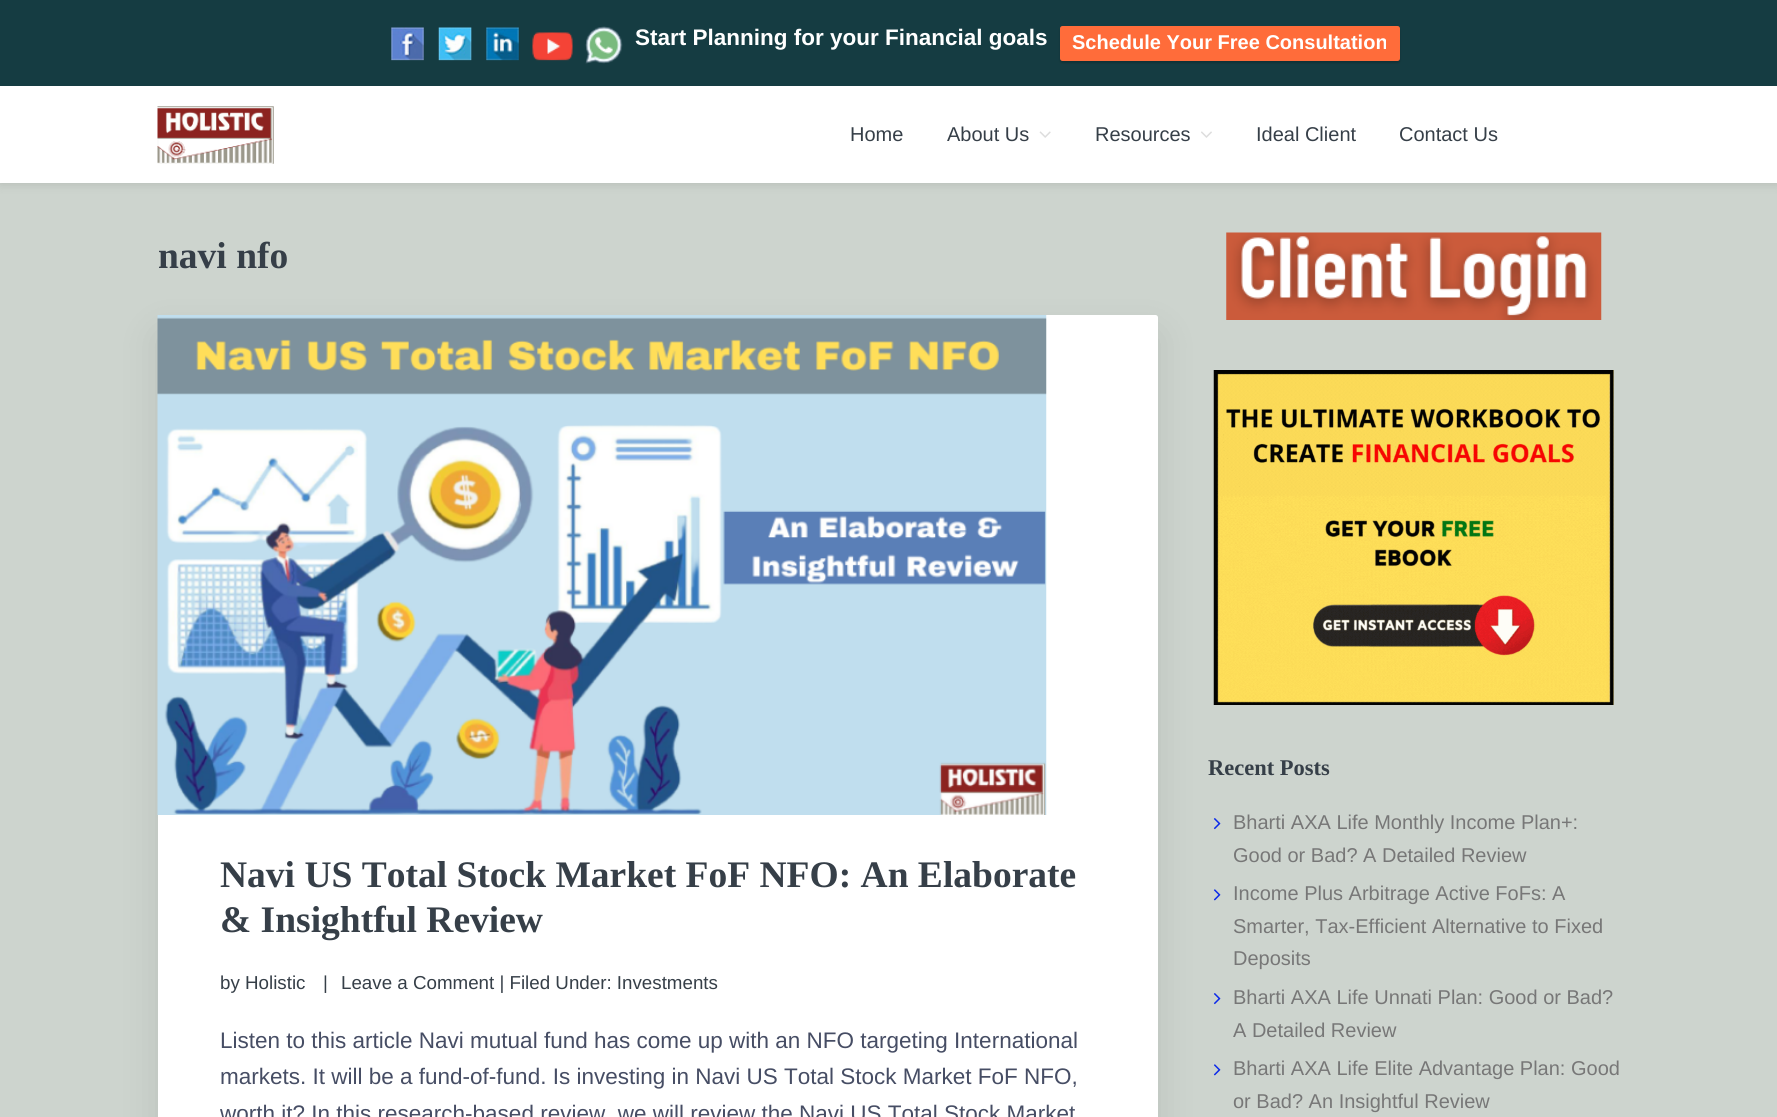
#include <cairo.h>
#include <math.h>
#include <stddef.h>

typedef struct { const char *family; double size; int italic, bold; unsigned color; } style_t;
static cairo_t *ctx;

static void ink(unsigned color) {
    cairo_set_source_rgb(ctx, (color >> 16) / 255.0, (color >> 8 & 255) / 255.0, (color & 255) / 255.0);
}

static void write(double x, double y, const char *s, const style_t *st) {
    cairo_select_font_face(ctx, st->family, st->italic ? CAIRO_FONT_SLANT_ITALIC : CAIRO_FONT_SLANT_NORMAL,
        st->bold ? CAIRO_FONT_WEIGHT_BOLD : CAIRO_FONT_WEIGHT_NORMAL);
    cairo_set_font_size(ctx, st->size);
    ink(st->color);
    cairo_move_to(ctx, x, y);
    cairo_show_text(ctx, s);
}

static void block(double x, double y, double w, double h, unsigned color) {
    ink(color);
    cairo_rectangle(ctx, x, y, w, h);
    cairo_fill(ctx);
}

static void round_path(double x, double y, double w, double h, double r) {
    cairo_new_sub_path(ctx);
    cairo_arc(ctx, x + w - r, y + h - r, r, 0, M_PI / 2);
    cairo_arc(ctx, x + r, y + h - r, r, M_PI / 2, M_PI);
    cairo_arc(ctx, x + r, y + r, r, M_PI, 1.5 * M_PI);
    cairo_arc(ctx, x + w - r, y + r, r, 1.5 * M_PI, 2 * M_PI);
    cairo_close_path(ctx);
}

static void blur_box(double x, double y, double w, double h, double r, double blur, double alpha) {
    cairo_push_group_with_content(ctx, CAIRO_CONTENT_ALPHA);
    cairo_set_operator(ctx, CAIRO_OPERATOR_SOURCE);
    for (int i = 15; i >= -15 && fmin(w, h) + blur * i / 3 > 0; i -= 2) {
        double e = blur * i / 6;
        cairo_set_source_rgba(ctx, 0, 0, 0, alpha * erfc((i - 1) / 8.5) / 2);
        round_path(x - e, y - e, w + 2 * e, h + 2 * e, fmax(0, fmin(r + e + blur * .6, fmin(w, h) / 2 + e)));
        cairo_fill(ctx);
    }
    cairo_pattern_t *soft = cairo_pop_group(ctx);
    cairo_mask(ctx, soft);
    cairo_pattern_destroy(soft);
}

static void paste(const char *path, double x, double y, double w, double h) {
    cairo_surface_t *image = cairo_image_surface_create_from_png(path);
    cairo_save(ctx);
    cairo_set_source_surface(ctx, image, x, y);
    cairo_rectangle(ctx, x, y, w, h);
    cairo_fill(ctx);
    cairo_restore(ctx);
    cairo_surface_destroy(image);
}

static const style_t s1 = {"Liberation Sans", 22.5, 0, 1, 0xffffff};
static const style_t s2 = {"Liberation Sans", 20, 0, 1, 0xffffff};
static const style_t s3 = {"Liberation Sans", 20, 0, 0, 0x363f48};
static const style_t s4 = {"Liberation Serif", 37.5, 0, 1, 0x363f48};
static const style_t s5 = {"Liberation Sans", 18.75, 0, 0, 0x363f48};
static const style_t s6 = {"Liberation Sans", 22.5, 0, 0, 0x464d64};
static const style_t s7 = {"Liberation Serif", 22.5, 0, 1, 0x363f48};
static const style_t s8 = {"Liberation Sans", 20, 0, 0, 0x777777};

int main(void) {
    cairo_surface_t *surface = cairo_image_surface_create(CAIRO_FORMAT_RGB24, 1777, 1117);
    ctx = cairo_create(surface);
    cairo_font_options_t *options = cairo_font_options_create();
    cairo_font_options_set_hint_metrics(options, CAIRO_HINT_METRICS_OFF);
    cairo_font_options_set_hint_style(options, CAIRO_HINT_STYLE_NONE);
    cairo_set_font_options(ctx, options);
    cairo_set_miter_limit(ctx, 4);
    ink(0xcdd4ce);
    cairo_paint(ctx);
    ink(0x000000);
    blur_box(0, 89, 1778, 96, 0, 5, 0.1);
    block(0, 0, 1777, 86, 0x153c42);
    paste("pic1.png", 391, 27, 33, 34);
    paste("pic2.png", 438, 27, 34, 34);
    paste("pic3.png", 486, 27, 33, 34);
    paste("pic4.png", 532, 32, 41, 29);
    paste("pic5.png", 585, 26, 38, 38);
    write(635, 45, "Start Planning for your Financial goals", &s1);
    ink(0x000000);
    blur_box(1060, 28, 340, 35, 2.5, 1, 0.2);
    ink(0xff6c3a);
    round_path(1060, 26, 340, 35, 2.5);
    cairo_fill(ctx);
    write(1072, 49, "Schedule Your Free Consultation", &s2);
    block(0, 86, 1777, 97, 0xffffff);
    paste("pic6.png", 157, 106, 117, 58);
    write(850, 141, "Home", &s3);
    write(947, 141, "About Us", &s3);
    paste("pic7.png", 1039, 131, 12, 7);
    write(1095, 141, "Resources", &s3);
    paste("pic8.png", 1201, 131, 11, 7);
    write(1256, 141, "Ideal Client", &s3);
    write(1399, 141, "Contact Us", &s3);
    write(158, 268, "navi nfo", &s4);
    ink(0x000000);
    blur_box(158, 334, 1000, 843, 2.5, 19, 0.1);
    ink(0xffffff);
    round_path(158, 315, 1000, 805, 2.5);
    cairo_fill(ctx);
    paste("pic9.png", 157, 315, 890, 500);
    write(220, 887, "Navi US Total Stock Market FoF NFO: An Elaborate", &s4);
    write(220, 932, "& Insightful Review", &s4);
    write(220, 989, "by Holistic", &s5);
    write(323, 989, "|", &s5);
    write(341, 989, "Leave a Comment | Filed Under: Investments", &s5);
    write(220, 1048, "Listen to this article Navi mutual fund has come up with an NFO targeting International", &s6);
    write(220, 1084, "markets. It will be a fund-of-fund. Is investing in Navi US Total Stock Market FoF NFO,", &s6);
    write(220, 1121, "worth it? In this research-based review, we will review the Navi US Total Stock Market", &s6);
    paste("pic10.png", 1226, 232, 376, 88);
    paste("pic11.png", 1213, 370, 401, 335);
    write(1208, 775, "Recent Posts", &s7);
    paste("pic12.png", 1213, 818, 8, 12);
    write(1233, 829, "Bharti AXA Life Monthly Income Plan+:", &s8);
    write(1233, 862, "Good or Bad? A Detailed Review", &s8);
    paste("pic13.png", 1213, 889, 8, 12);
    write(1233, 900, "Income Plus Arbitrage Active FoFs: A", &s8);
    write(1233, 933, "Smarter, Tax-Efficient Alternative to Fixed", &s8);
    write(1233, 965, "Deposits", &s8);
    paste("pic12.png", 1213, 993, 8, 12);
    write(1233, 1004, "Bharti AXA Life Unnati Plan: Good or Bad?", &s8);
    write(1233, 1037, "A Detailed Review", &s8);
    paste("pic13.png", 1213, 1064, 8, 12);
    write(1233, 1075, "Bharti AXA Life Elite Advantage Plan: Good", &s8);
    write(1233, 1108, "or Bad? An Insightful Review", &s8);
    cairo_surface_write_to_png(surface, "screenshot.png");
    cairo_font_options_destroy(options);
    cairo_destroy(ctx);
    cairo_surface_destroy(surface);
    return 0;
}
